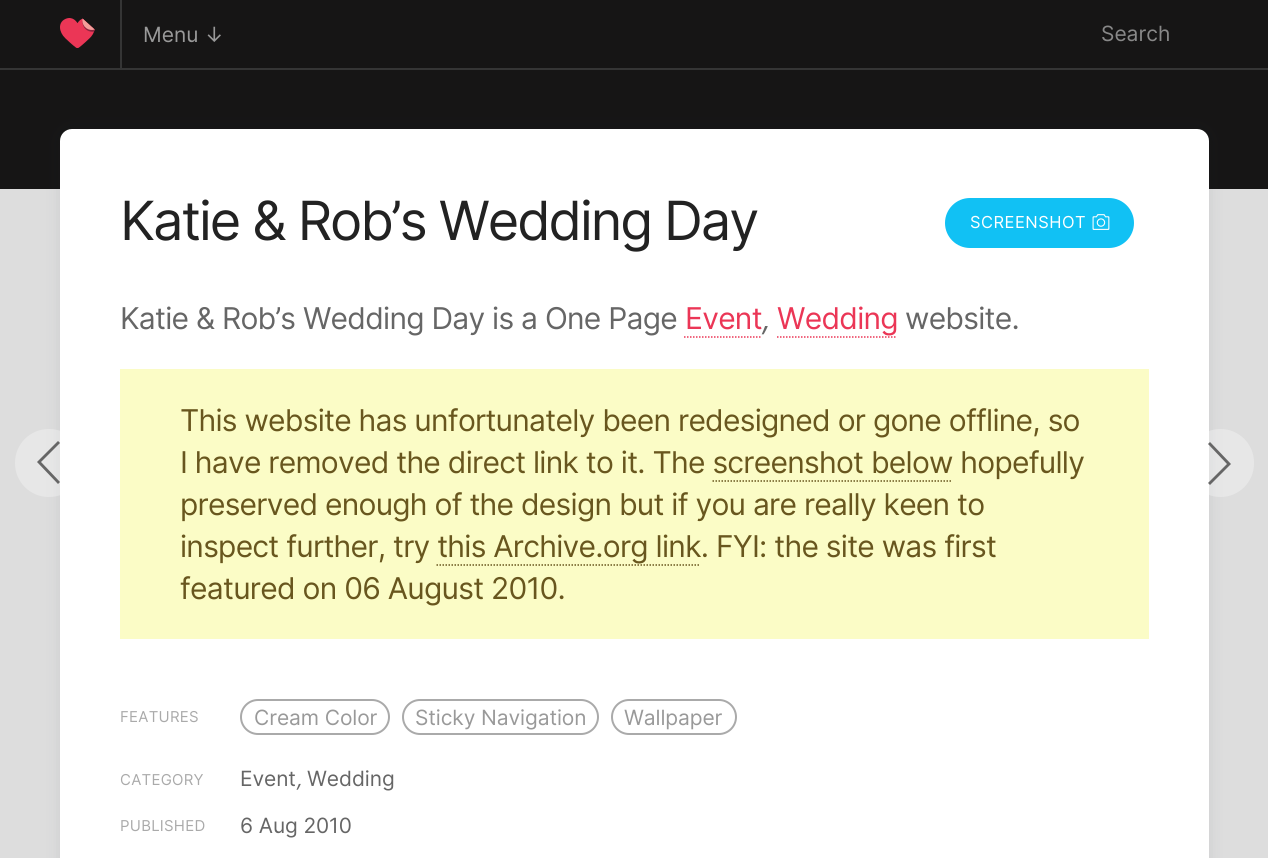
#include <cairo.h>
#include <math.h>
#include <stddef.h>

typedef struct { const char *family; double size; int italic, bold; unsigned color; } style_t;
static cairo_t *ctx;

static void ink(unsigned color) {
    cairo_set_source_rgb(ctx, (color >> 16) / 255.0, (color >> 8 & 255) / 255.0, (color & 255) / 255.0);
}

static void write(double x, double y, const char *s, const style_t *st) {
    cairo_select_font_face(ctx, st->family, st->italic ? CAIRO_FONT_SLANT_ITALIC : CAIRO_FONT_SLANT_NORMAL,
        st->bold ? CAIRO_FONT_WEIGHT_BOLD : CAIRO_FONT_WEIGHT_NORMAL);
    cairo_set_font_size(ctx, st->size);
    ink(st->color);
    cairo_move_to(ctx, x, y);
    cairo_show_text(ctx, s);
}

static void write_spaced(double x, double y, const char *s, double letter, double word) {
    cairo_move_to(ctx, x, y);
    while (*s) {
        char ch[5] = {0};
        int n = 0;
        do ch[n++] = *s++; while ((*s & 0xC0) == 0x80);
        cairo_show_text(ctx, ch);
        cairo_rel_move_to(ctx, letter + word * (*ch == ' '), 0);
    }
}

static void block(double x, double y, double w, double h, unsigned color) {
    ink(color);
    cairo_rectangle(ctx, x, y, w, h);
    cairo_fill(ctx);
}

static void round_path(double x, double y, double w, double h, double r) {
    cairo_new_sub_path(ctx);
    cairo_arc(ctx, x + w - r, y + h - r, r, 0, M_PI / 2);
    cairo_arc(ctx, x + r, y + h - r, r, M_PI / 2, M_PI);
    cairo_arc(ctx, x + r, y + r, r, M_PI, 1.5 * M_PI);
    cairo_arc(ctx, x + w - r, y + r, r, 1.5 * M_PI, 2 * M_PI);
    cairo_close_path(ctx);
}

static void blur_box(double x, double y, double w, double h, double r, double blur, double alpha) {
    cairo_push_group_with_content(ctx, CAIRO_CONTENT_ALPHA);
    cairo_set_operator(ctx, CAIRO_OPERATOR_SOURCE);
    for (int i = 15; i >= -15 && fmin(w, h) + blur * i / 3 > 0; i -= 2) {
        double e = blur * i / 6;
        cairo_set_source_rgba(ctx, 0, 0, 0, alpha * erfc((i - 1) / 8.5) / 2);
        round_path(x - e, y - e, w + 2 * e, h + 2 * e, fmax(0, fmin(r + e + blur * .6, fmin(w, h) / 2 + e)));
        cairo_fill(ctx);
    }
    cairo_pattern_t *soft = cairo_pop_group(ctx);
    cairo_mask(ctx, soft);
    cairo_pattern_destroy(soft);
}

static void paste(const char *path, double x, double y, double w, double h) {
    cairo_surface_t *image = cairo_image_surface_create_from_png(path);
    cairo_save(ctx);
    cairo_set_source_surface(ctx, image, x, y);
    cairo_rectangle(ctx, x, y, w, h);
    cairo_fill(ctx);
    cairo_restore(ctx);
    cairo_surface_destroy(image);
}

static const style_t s1 = {"Inter", 21, 0, 0, 0x999999};
static const style_t s2 = {"Inter", 21, 0, 0, 0x888888};

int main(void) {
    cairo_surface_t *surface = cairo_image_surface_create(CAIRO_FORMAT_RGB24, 1268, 858);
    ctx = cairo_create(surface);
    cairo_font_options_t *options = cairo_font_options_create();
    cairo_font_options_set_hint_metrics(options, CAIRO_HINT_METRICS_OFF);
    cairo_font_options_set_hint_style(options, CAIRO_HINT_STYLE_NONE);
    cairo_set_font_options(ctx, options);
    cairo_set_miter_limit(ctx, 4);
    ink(0xdddddd);
    cairo_paint(ctx);
    block(0, 0, 1268, 68, 0x161515);
    block(0, 68, 1268, 2, 0x353535);
    paste("pic1.png", 60, 18, 35, 30);
    block(120, 0, 2, 69, 0x353535);
    write(143, 42, "Menu ↓", &s1);
    write(1101, 41, "Search", &s2);
    block(0, 70, 1268, 119, 0x161515);
    ink(0x273141);
    blur_box(60, 129, 1149, 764, 12, 7.5, 0.1);
    ink(0xffffff);
    round_path(60, 129, 1149, 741, 12);
    cairo_fill(ctx);
    cairo_set_font_size(ctx, 54);
    ink(0x222222);
    write_spaced(120, 240, "Katie & Rob’s Wedding Day", -2.1, 0);
    ink(0x11c1f4);
    round_path(945, 198, 189, 50, 25);
    cairo_fill(ctx);
    cairo_set_font_size(ctx, 16.5);
    ink(0xffffff);
    write_spaced(970, 228, "SCREENSHOT", 0.5, 0);
    paste("pic2.png", 1092, 214, 18, 16);
    cairo_set_font_size(ctx, 30);
    ink(0x666666);
    write_spaced(120, 329, "Katie & Rob’s Wedding Day is a One Page", -0.75, 0);
    ink(0xeb3656);
    write_spaced(685, 329, "Event", -0.75, 0);
    cairo_select_font_face(ctx, "Inter", CAIRO_FONT_SLANT_ITALIC, CAIRO_FONT_WEIGHT_NORMAL);
    ink(0x666666);
    write_spaced(761, 329, ",", -0.75, 0);
    cairo_new_path(ctx);
    cairo_move_to(ctx, 684, 337);
    cairo_line_to(ctx, 762, 337);
    ink(0xeb3656);
    cairo_set_line_width(ctx, 1.5);
    cairo_set_dash(ctx, (double[]){1.5, 1.5}, 2, 0);
    cairo_stroke(ctx);
    cairo_new_path(ctx);
    cairo_move_to(ctx, 777, 337);
    cairo_line_to(ctx, 897, 337);
    cairo_stroke(ctx);
    cairo_select_font_face(ctx, "Inter", CAIRO_FONT_SLANT_NORMAL, CAIRO_FONT_WEIGHT_NORMAL);
    write_spaced(777, 329, "Wedding", -0.75, 0);
    ink(0x666666);
    write_spaced(905, 329, "website.", -0.75, 0);
    block(120, 369, 1029, 270, 0xfbfcc6);
    ink(0x68561e);
    write_spaced(180, 431, "This website has unfortunately been redesigned or gone offline, so", -0.75, 0);
    write_spaced(180, 473, "I have removed the direct link to it. The screenshot below hopefully", -0.75, 0);
    cairo_new_path(ctx);
    cairo_move_to(ctx, 712.5, 481);
    cairo_line_to(ctx, 952.5, 481);
    cairo_stroke(ctx);
    write_spaced(180, 515, "preserved enough of the design but if you are really keen to", -0.75, 0);
    write_spaced(180, 557, "inspect further, try this Archive.org link. FYI: the site was first", -0.75, 0);
    cairo_new_path(ctx);
    cairo_move_to(ctx, 436.5, 565);
    cairo_line_to(ctx, 700.5, 565);
    cairo_stroke(ctx);
    write_spaced(180, 599, "featured on 06 August 2010.", -0.75, 0);
    cairo_set_font_size(ctx, 15);
    ink(0xaaaaaa);
    write_spaced(120, 722, "FEATURES", 0.25, 0);
    round_path(241, 700, 148, 34, 17);
    cairo_set_line_width(ctx, 2);
    cairo_set_dash(ctx, NULL, 0, 0);
    cairo_stroke(ctx);
    cairo_set_font_size(ctx, 21);
    ink(0x999999);
    write_spaced(254, 725, "Cream Color", -0.1, 0);
    round_path(403, 700, 195, 34, 17);
    ink(0xaaaaaa);
    cairo_stroke(ctx);
    ink(0x999999);
    write_spaced(415, 725, "Sticky Navigation", -0.1, 0);
    round_path(612, 700, 124, 34, 17);
    ink(0xaaaaaa);
    cairo_stroke(ctx);
    ink(0x999999);
    write_spaced(624, 725, "Wallpaper", -0.1, 0);
    cairo_set_font_size(ctx, 15);
    ink(0xaaaaaa);
    write_spaced(120, 785, "CATEGORY", 0.25, 0);
    cairo_set_font_size(ctx, 21);
    ink(0x666666);
    write_spaced(240, 786, "Event", -0.1, 0);
    cairo_select_font_face(ctx, "Inter", CAIRO_FONT_SLANT_ITALIC, CAIRO_FONT_WEIGHT_NORMAL);
    write_spaced(296, 786, ",", -0.1, 0);
    cairo_select_font_face(ctx, "Inter", CAIRO_FONT_SLANT_NORMAL, CAIRO_FONT_WEIGHT_NORMAL);
    write_spaced(307, 786, "Wedding", -0.1, 0);
    cairo_set_font_size(ctx, 15);
    ink(0xaaaaaa);
    write_spaced(120, 831, "PUBLISHED", 0.25, 0);
    cairo_set_font_size(ctx, 21);
    ink(0x666666);
    write_spaced(240, 833, "6 Aug 2010", -0.1, 0);
    cairo_set_source_rgba(ctx, 1, 1, 1, 0.3);
    cairo_new_path(ctx);
    cairo_move_to(ctx, 49, 497);
    cairo_curve_to(ctx, 30, 497, 15, 482, 15, 463);
    cairo_curve_to(ctx, 15, 444, 30, 429, 49, 429);
    cairo_curve_to(ctx, 68, 429, 83, 444, 83, 463);
    cairo_curve_to(ctx, 83, 482, 68, 497, 49, 497);
    cairo_close_path(ctx);
    cairo_fill(ctx);
    ink(0x666666);
    cairo_new_path(ctx);
    cairo_move_to(ctx, 58, 484);
    cairo_line_to(ctx, 60, 482);
    cairo_line_to(ctx, 41, 462);
    cairo_line_to(ctx, 60, 443);
    cairo_line_to(ctx, 58, 441);
    cairo_line_to(ctx, 37, 462);
    cairo_close_path(ctx);
    cairo_fill(ctx);
    cairo_set_source_rgba(ctx, 1, 1, 1, 0.3);
    round_path(1187, 429, 67, 68, 33.5);
    cairo_fill(ctx);
    ink(0x666666);
    cairo_new_path(ctx);
    cairo_move_to(ctx, 1210, 442);
    cairo_line_to(ctx, 1208, 444);
    cairo_line_to(ctx, 1227, 464);
    cairo_line_to(ctx, 1208, 483);
    cairo_line_to(ctx, 1210, 485);
    cairo_line_to(ctx, 1231, 464);
    cairo_close_path(ctx);
    cairo_fill(ctx);
    cairo_surface_write_to_png(surface, "screenshot.png");
    cairo_font_options_destroy(options);
    cairo_destroy(ctx);
    cairo_surface_destroy(surface);
    return 0;
}
